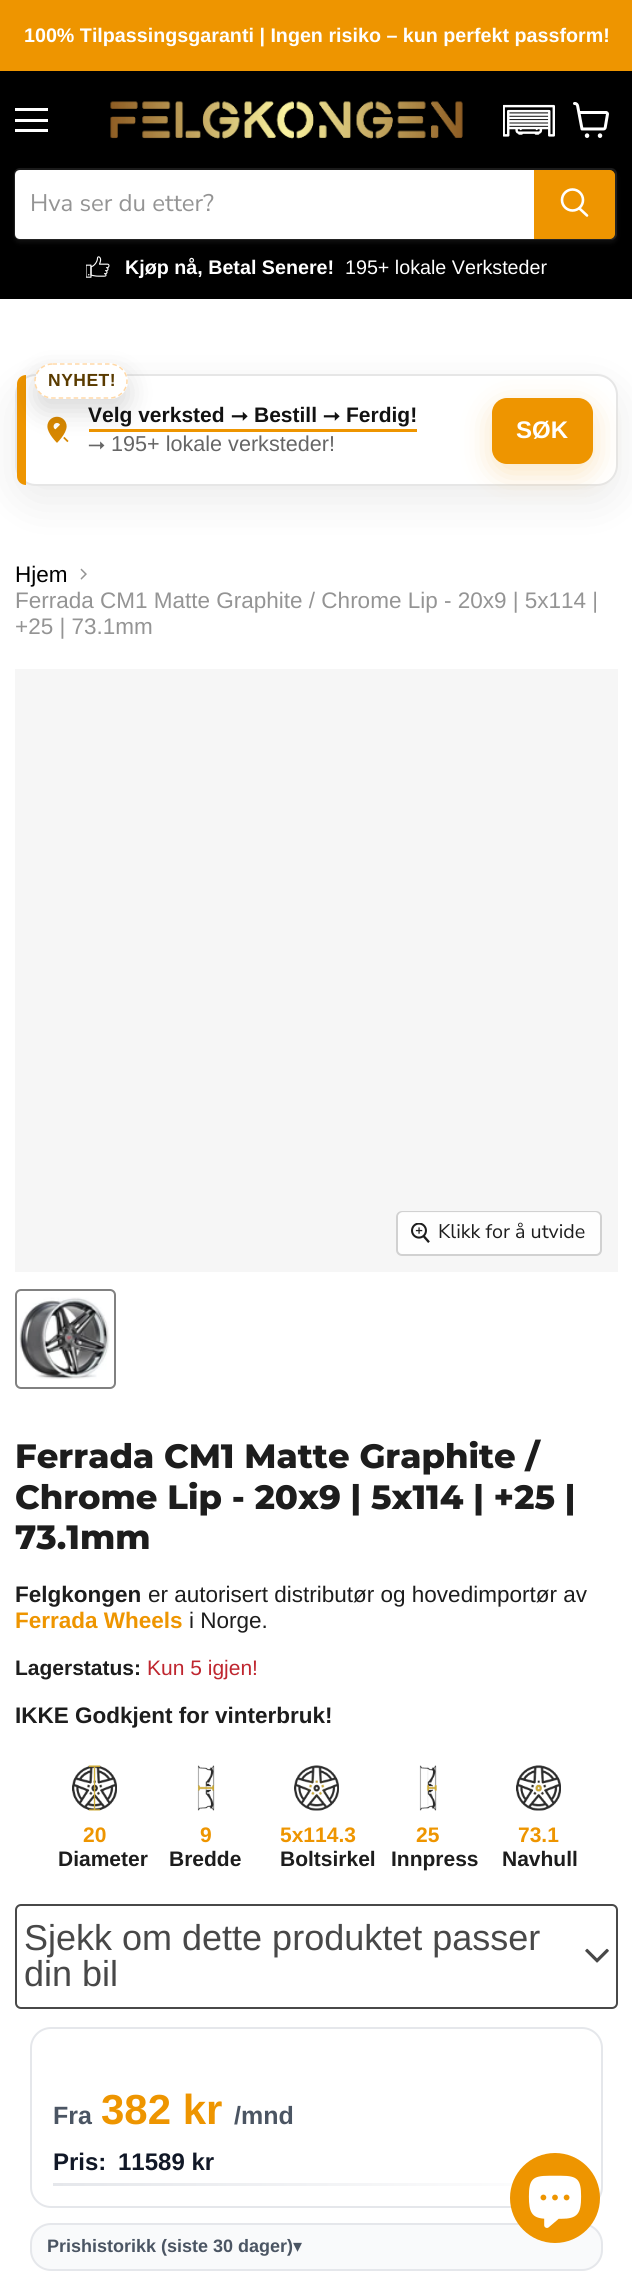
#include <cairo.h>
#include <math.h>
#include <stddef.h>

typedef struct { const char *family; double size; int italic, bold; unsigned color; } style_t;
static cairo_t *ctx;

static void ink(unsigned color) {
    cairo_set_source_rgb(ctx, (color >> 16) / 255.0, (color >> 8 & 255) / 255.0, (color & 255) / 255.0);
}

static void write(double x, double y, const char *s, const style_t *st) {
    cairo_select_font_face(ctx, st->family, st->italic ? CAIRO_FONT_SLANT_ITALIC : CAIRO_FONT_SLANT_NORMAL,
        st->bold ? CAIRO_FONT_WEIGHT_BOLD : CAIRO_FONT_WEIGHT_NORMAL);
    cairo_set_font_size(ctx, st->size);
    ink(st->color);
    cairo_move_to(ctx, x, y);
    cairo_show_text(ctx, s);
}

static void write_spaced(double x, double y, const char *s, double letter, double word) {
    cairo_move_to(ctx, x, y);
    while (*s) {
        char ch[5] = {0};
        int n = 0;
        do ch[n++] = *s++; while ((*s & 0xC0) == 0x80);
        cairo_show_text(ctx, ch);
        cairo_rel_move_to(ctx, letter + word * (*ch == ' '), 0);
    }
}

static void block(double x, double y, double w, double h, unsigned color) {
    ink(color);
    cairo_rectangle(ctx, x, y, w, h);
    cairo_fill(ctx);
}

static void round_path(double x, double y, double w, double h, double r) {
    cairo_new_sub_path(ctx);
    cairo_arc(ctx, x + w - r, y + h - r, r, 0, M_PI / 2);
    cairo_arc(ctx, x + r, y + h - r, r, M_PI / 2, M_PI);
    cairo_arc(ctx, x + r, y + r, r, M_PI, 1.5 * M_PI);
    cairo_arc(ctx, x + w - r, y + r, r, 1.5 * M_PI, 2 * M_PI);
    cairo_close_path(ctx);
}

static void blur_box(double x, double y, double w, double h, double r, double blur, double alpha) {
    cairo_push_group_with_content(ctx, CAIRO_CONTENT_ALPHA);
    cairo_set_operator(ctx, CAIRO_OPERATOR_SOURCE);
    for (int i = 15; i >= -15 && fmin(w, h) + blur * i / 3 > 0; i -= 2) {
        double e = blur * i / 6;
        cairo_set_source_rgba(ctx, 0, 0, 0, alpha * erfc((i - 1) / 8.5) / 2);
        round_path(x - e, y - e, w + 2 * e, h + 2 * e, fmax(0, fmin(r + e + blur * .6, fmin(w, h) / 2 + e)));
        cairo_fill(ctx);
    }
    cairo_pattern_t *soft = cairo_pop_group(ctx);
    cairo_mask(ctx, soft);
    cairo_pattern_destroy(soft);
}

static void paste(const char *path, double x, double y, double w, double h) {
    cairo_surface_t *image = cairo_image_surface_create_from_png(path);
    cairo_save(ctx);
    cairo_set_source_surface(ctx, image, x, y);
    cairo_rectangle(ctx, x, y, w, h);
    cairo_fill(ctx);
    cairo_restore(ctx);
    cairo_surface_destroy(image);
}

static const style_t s1 = {"Liberation Sans", 19.7, 0, 1, 0xffffff};
static const style_t s2 = {"Nunito Sans", 24, 0, 0, 0x949494};
static const style_t s3 = {"Liberation Sans", 19.7, 0, 0, 0xffffff};
static const style_t s4 = {"Liberation Sans", 21, 0, 1, 0x121212};
static const style_t s5 = {"FreeSans", 21, 0, 1, 0x121212};
static const style_t s6 = {"FreeSans", 21.6, 0, 0, 0x666666};
static const style_t s7 = {"Liberation Sans", 21.6, 0, 0, 0x666666};
static const style_t s8 = {"Liberation Sans", 24, 0, 1, 0xffffff};
static const style_t s9 = {"Liberation Sans", 22.5, 0, 0, 0x000000};
static const style_t s10 = {"Liberation Sans", 22.5, 0, 0, 0x949494};
static const style_t s11 = {"Nunito Sans", 19.7, 0, 0, 0x1d1d1d};
static const style_t s12 = {"Montserrat ExtraBold", 33.75, 0, 0, 0x1d1d1d};
static const style_t s13 = {"Liberation Sans", 22.5, 0, 1, 0x1d1d1d};
static const style_t s14 = {"Liberation Sans", 22.5, 0, 0, 0x1d1d1d};
static const style_t s15 = {"Liberation Sans", 22.5, 0, 1, 0xee9500};
static const style_t s16 = {"Liberation Sans", 21, 0, 1, 0x1d1d1d};
static const style_t s17 = {"Liberation Sans", 21, 0, 0, 0xbf262f};
static const style_t s18 = {"Liberation Sans", 21, 0, 1, 0xee9500};
static const style_t s19 = {"Liberation Sans", 36, 0, 0, 0x484848};
static const style_t s20 = {"Liberation Sans", 25, 0, 1, 0x4b5563};
static const style_t s21 = {"Liberation Sans", 42, 0, 1, 0xee9500};
static const style_t s22 = {"Liberation Sans", 24, 0, 1, 0x111827};
static const style_t s23 = {"Liberation Sans", 18, 0, 1, 0x4b5563};
static const style_t s24 = {"DejaVu Sans", 18, 0, 0, 0x4b5563};

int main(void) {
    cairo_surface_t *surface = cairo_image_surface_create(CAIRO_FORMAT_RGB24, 632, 2274);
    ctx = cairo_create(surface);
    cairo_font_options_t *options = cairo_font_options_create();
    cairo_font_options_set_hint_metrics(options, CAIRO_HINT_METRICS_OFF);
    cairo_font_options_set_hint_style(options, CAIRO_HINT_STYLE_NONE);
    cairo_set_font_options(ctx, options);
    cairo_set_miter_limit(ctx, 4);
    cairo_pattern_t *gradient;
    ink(0xffffff);
    cairo_paint(ctx);
    block(0, 0, 632, 71, 0xee9500);
    write(24, 42, "100% Tilpassingsgaranti | Ingen risiko – kun perfekt passform!", &s1);
    block(0, 71, 632, 228, 0x000000);
    block(15, 108, 33, 3, 0xffffff);
    block(15, 119, 33, 3, 0xffffff);
    block(15, 129, 33, 3, 0xffffff);
    paste("pic1.png", 503, 104, 52, 33);
    paste("pic2.png", 573, 102, 36, 36);
    paste("pic3.png", 110, 101, 353, 38);
    ink(0x808080);
    blur_box(14, 171, 603, 72, 6, 2, 0.11);
    round_path(15, 169, 601, 70, 5);
    cairo_set_source_rgba(ctx, 0.502, 0.502, 0.502, 0.2);
    cairo_stroke(ctx);
    ink(0xffffff);
    cairo_new_path(ctx);
    cairo_move_to(ctx, 20, 170);
    cairo_line_to(ctx, 534, 170);
    cairo_line_to(ctx, 534, 239);
    cairo_line_to(ctx, 20, 239);
    cairo_curve_to(ctx, 17, 239, 15, 237, 15, 234);
    cairo_line_to(ctx, 15, 175);
    cairo_curve_to(ctx, 15, 172, 17, 170, 20, 170);
    cairo_close_path(ctx);
    cairo_fill(ctx);
    write(30, 211, "Hva ser du etter?", &s2);
    ink(0xee9500);
    cairo_new_path(ctx);
    cairo_move_to(ctx, 535, 171);
    cairo_line_to(ctx, 610, 171);
    cairo_curve_to(ctx, 612, 171, 614, 173, 614, 175);
    cairo_line_to(ctx, 614, 234);
    cairo_curve_to(ctx, 614, 236, 612, 238, 610, 238);
    cairo_line_to(ctx, 535, 238);
    cairo_close_path(ctx);
    cairo_fill_preserve(ctx);
    cairo_stroke(ctx);
    cairo_new_path(ctx);
    cairo_move_to(ctx, 587, 215.5);
    cairo_line_to(ctx, 579.5, 208.5);
    ink(0xffffff);
    cairo_set_line_width(ctx, 2.6);
    cairo_set_line_cap(ctx, CAIRO_LINE_CAP_ROUND);
    cairo_stroke(ctx);
    cairo_arc(ctx, 572.5, 200, 10.5, 0, 2 * M_PI);
    cairo_set_line_cap(ctx, CAIRO_LINE_CAP_BUTT);
    cairo_stroke(ctx);
    paste("pic4.png", 86, 256, 24, 22);
    write(125, 274, "Kjøp nå, Betal Senere!", &s1);
    write(345, 274, "195+ lokale Verksteder", &s3);
    ink(0x000000);
    blur_box(15, 389, 603, 112, 21, 22.5, 0.08);
    ink(0xffffff);
    round_path(16, 375, 601, 110, 20);
    cairo_fill_preserve(ctx);
    ink(0xe6e6e6);
    cairo_set_line_width(ctx, 2);
    cairo_stroke(ctx);
    ink(0xee9500);
    cairo_new_path(ctx);
    cairo_move_to(ctx, 26, 375);
    cairo_line_to(ctx, 26, 485);
    cairo_curve_to(ctx, 21, 485, 17, 481, 17, 476);
    cairo_line_to(ctx, 17, 384);
    cairo_curve_to(ctx, 17, 379, 21, 375, 26, 375);
    cairo_close_path(ctx);
    cairo_fill(ctx);
    paste("pic5.png", 47, 416, 22, 27);
    block(89, 429, 328, 3, 0xee9500);
    ink(0x000000);
    blur_box(35, 375, 93, 36, 18, 13.5, 0.15);
    ink(0xffffff);
    round_path(35, 363, 93, 36, 18);
    cairo_fill(ctx);
    cairo_new_path(ctx);
    cairo_move_to(ctx, 52.5, 364);
    cairo_line_to(ctx, 109.5, 364);
    cairo_curve_to(ctx, 119, 364, 127, 371.5, 127, 381);
    cairo_curve_to(ctx, 127, 390.5, 119, 398, 109.5, 398);
    cairo_line_to(ctx, 52.5, 398);
    cairo_curve_to(ctx, 43, 398, 35, 390.5, 35, 381);
    cairo_curve_to(ctx, 35, 371.5, 43, 364, 52.5, 364);
    cairo_close_path(ctx);
    ink(0xffd8a6);
    cairo_set_line_width(ctx, 1.5);
    cairo_set_dash(ctx, (double[]){4.5, 3}, 2, 0);
    cairo_stroke(ctx);
    cairo_select_font_face(ctx, "Liberation Sans", CAIRO_FONT_SLANT_NORMAL, CAIRO_FONT_WEIGHT_BOLD);
    cairo_set_font_size(ctx, 17.5);
    ink(0x5a3b00);
    write_spaced(48, 386, "NYHET!", 0.5, 0);
    write(88, 422, "Velg verksted", &s4);
    write(231, 422, "⭢", &s5);
    write(254, 422, "Bestill", &s4);
    write(323, 422, "⭢", &s5);
    write(346, 422, "Ferdig!", &s4);
    write(88, 451, "⭢", &s6);
    write(111, 451, "195+ lokale verksteder!", &s7);
    ink(0xee9500);
    blur_box(492, 407, 101, 66, 15, 15, 0.25);
    ink(0xee9500);
    round_path(492, 398, 101, 66, 15);
    cairo_fill(ctx);
    write(516, 438, "SØK", &s8);
    write(15, 582, "Hjem", &s9);
    paste("pic6.png", 80, 568, 7, 12);
    write(15, 608, "Ferrada CM1 Matte Graphite / Chrome Lip - 20x9 | 5x114 |", &s10);
    write(15, 634, "+25 | 73.1mm", &s10);
    block(15, 669, 603, 603, 0xf6f6f6);
    round_path(397, 1212, 204, 43, 5);
    ink(0xd1d1d1);
    cairo_set_line_width(ctx, 2);
    cairo_set_dash(ctx, NULL, 0, 0);
    cairo_stroke(ctx);
    cairo_set_source_rgba(ctx, 1, 1, 1, 0.9);
    round_path(398, 1212, 202, 42, 5);
    cairo_fill(ctx);
    paste("pic7.png", 411, 1223, 19, 20);
    write(438, 1238, "Klikk for å utvide", &s11);
    round_path(16, 1290, 99, 98, 5);
    ink(0x818181);
    cairo_stroke(ctx);
    paste("pic8.png", 19, 1297, 91, 82);
    write(15, 1468, "Ferrada CM1 Matte Graphite /", &s12);
    write(15, 1509, "Chrome Lip - 20x9 | 5x114 | +25 |", &s12);
    write(15, 1549, "73.1mm", &s12);
    write(15, 1602, "Felgkongen", &s13);
    write(148, 1602, "er autorisert distributør og hovedimportør av", &s14);
    write(15, 1628, "Ferrada Wheels", &s15);
    write(189, 1628, "i Norge.", &s14);
    write(15, 1675, "Lagerstatus:", &s16);
    write(147, 1675, "Kun 5 igjen!", &s17);
    write(15, 1723, "IKKE Godkjent for vinterbruk!", &s13);
    paste("pic9.png", 72, 1765, 45, 46);
    write(83, 1842, "20", &s18);
    write(58, 1866, "Diameter", &s16);
    paste("pic10.png", 197, 1765, 18, 46);
    write(200, 1842, "9", &s18);
    write(169, 1866, "Bredde", &s16);
    paste("pic11.png", 294, 1765, 45, 46);
    write(280, 1842, "5x114.3", &s18);
    write(280, 1866, "Boltsirkel", &s16);
    paste("pic12.png", 419, 1765, 18, 46);
    write(416, 1842, "25", &s18);
    write(391, 1866, "Innpress", &s16);
    paste("pic13.png", 516, 1765, 45, 46);
    write(518, 1842, "73.1", &s18);
    write(502, 1866, "Navhull", &s16);
    round_path(16, 1905, 601, 103, 5);
    ink(0x484848);
    cairo_stroke(ctx);
    write(24, 1950, "Sjekk om dette produktet passer", &s19);
    paste("pic14.png", 585, 1948, 24, 15);
    write(24, 1986, "din bil", &s19);
    round_path(31, 2028, 571, 179, 20);
    ink(0xe5e7eb);
    cairo_stroke(ctx);
    write(53, 2124, "Fra", &s20);
    write(101, 2124, "382 kr", &s21);
    write(234, 2124, "/mnd", &s20);
    write(53, 2170, "Pris:", &s22);
    write(118, 2170, "11589 kr", &s22);
    gradient = cairo_pattern_create_linear(53, 2184, 581, 2184);
    cairo_pattern_add_color_stop_rgba(gradient, 0, 0.898, 0.906, 0.922, 1);
    cairo_pattern_add_color_stop_rgba(gradient, 1, 1, 1, 1, 1);
    cairo_set_source(ctx, gradient);
    cairo_pattern_destroy(gradient);
    cairo_rectangle(ctx, 53, 2183, 460, 3);
    cairo_fill(ctx);
    ink(0xf9fafb);
    round_path(31, 2224, 571, 46, 20);
    cairo_fill_preserve(ctx);
    ink(0xe5e7eb);
    cairo_stroke(ctx);
    write(47, 2252, "Prishistorikk (siste 30 dager)", &s23);
    write(293, 2252, "▾", &s24);
    ink(0xee9500);
    cairo_new_path(ctx);
    cairo_arc(ctx, 555, 2198, 45, 0, 2 * M_PI);
    cairo_fill(ctx);
    paste("pic15.png", 528, 2175, 54, 53);
    cairo_surface_write_to_png(surface, "screenshot.png");
    cairo_font_options_destroy(options);
    cairo_destroy(ctx);
    cairo_surface_destroy(surface);
    return 0;
}
